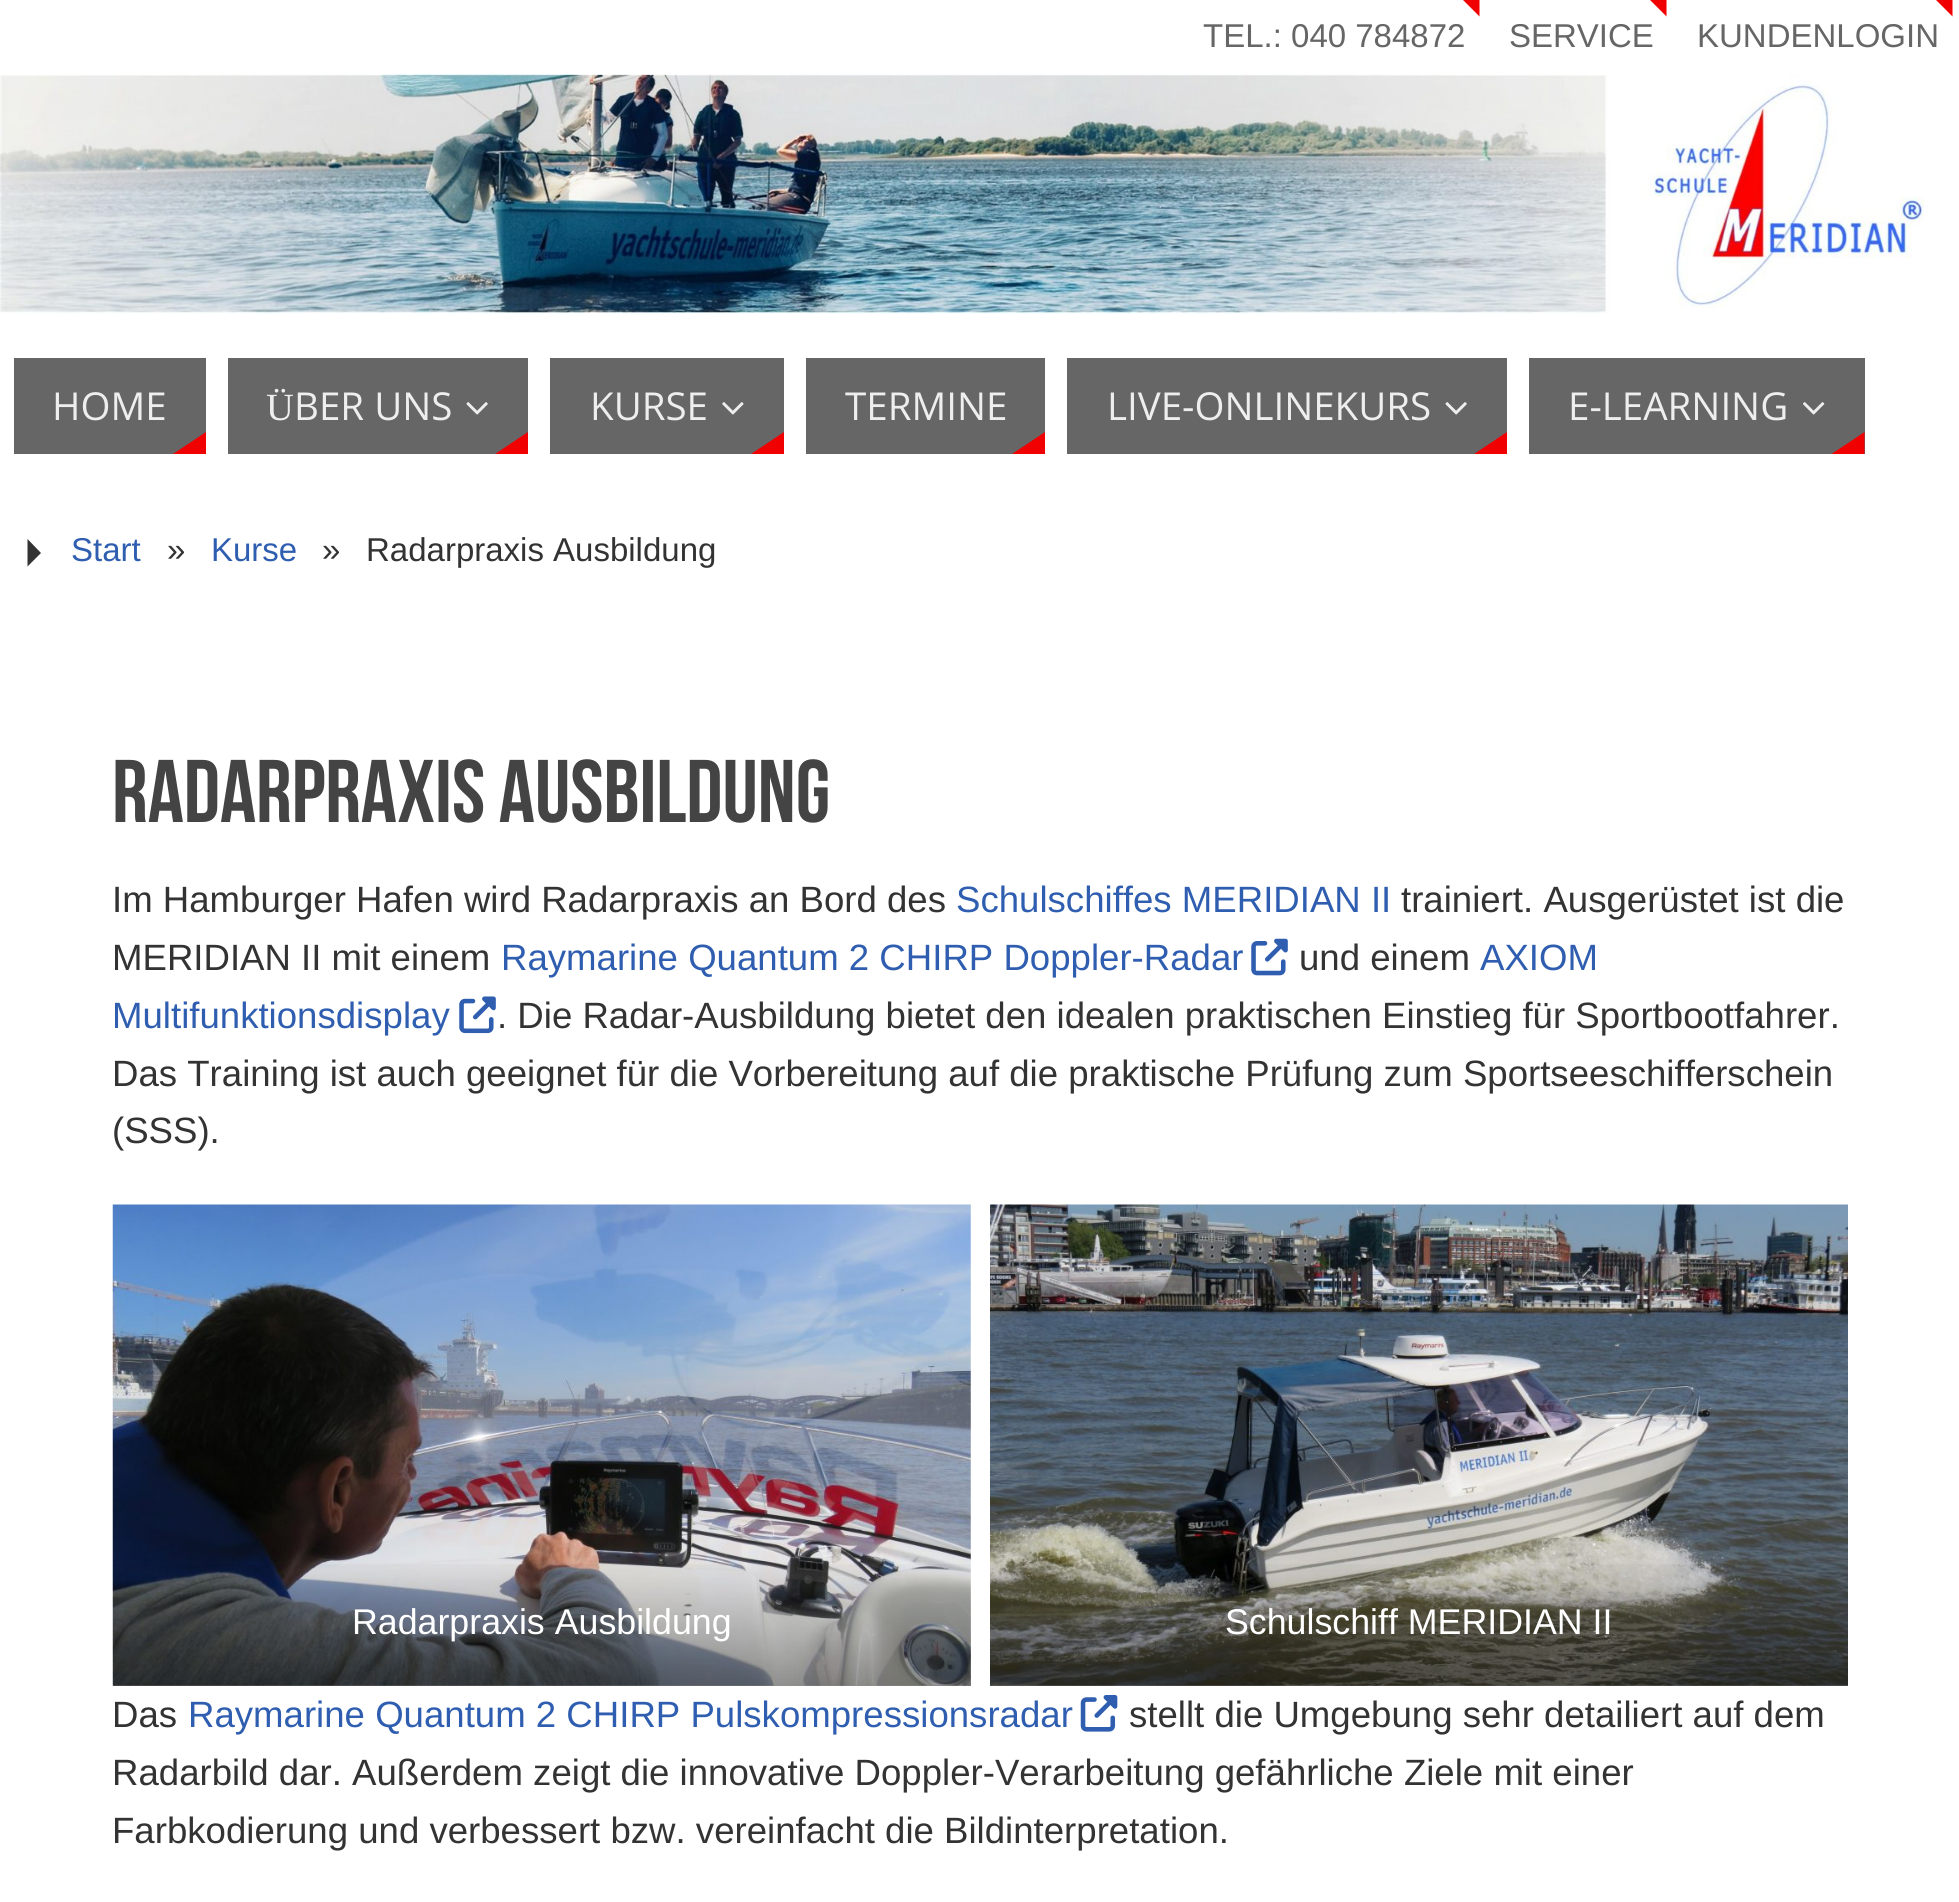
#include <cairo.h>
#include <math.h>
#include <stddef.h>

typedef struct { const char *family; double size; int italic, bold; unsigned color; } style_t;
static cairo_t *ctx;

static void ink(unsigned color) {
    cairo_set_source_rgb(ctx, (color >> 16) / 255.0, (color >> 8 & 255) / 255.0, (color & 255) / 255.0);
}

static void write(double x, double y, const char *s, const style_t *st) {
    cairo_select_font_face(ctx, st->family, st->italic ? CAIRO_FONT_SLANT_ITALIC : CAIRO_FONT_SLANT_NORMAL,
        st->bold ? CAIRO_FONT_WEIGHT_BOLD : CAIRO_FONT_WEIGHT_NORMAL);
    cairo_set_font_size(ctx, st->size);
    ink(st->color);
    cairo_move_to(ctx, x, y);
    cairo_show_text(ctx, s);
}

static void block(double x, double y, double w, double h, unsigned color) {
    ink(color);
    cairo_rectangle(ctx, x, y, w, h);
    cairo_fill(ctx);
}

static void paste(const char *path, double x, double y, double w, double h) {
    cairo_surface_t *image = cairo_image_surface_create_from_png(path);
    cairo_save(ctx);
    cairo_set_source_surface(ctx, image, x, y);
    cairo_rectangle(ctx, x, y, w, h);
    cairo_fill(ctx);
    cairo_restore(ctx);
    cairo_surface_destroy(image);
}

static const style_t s1 = {"Liberation Sans", 33, 0, 0, 0x666666};
static const style_t s2 = {"Open Sans", 38.5, 0, 0, 0xeeeeee};
static const style_t s3 = {"Liberation Serif", 38.5, 0, 0, 0xeeeeee};
static const style_t s4 = {"Liberation Sans", 33, 0, 0, 0x2f5eb1};
static const style_t s5 = {"Liberation Sans", 33, 0, 0, 0x333333};
static const style_t s6 = {"Bebas Neue", 88.75, 0, 0, 0x444444};
static const style_t s7 = {"Liberation Sans", 36.6, 0, 0, 0x333333};
static const style_t s8 = {"Liberation Sans", 36.6, 0, 0, 0x2f5eb1};
static const style_t s9 = {"Liberation Sans", 35.75, 0, 0, 0xffffff};

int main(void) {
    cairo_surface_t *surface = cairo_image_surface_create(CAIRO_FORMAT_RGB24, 1959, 1902);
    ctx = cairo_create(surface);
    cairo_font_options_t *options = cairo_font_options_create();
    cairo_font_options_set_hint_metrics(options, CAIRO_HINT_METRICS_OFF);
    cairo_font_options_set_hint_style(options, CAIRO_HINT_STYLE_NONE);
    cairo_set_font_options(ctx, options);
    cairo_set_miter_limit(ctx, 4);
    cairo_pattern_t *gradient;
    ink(0xffffff);
    cairo_paint(ctx);
    ink(0xf00000);
    cairo_new_path(ctx);
    cairo_move_to(ctx, 1463, 0);
    cairo_line_to(ctx, 1479.5, 0);
    cairo_line_to(ctx, 1479.5, 16.5);
    cairo_close_path(ctx);
    cairo_fill(ctx);
    write(1203, 47, "TEL.: 040 784872", &s1);
    ink(0xf00000);
    cairo_new_path(ctx);
    cairo_move_to(ctx, 1650, 0);
    cairo_line_to(ctx, 1666.5, 0);
    cairo_line_to(ctx, 1666.5, 16.5);
    cairo_close_path(ctx);
    cairo_fill(ctx);
    write(1509, 47, "SERVICE", &s1);
    ink(0xf00000);
    cairo_new_path(ctx);
    cairo_move_to(ctx, 1936, 0);
    cairo_line_to(ctx, 1952.5, 0);
    cairo_line_to(ctx, 1952.5, 16.5);
    cairo_close_path(ctx);
    cairo_fill(ctx);
    write(1697, 47, "KUNDENLOGIN", &s1);
    paste("pic1.png", 0, 74, 1925, 240);
    block(14, 358, 192, 96, 0x666666);
    write(52, 420, "HOME", &s2);
    ink(0xf00000);
    cairo_new_path(ctx);
    cairo_move_to(ctx, 206, 454);
    cairo_line_to(ctx, 173, 454);
    cairo_line_to(ctx, 206, 432);
    cairo_close_path(ctx);
    cairo_fill(ctx);
    block(228, 358, 300, 96, 0x666666);
    write(266, 420, "Ü", &s3);
    write(294, 420, "BER UNS", &s2);
    paste("pic2.png", 466, 402, 22, 13);
    ink(0xf00000);
    cairo_new_path(ctx);
    cairo_move_to(ctx, 528, 454);
    cairo_line_to(ctx, 495, 454);
    cairo_line_to(ctx, 528, 432);
    cairo_close_path(ctx);
    cairo_fill(ctx);
    block(550, 358, 234, 96, 0x666666);
    write(590, 420, "KURSE", &s2);
    paste("pic3.png", 722, 402, 22, 13);
    ink(0xf00000);
    cairo_new_path(ctx);
    cairo_move_to(ctx, 784, 454);
    cairo_line_to(ctx, 751, 454);
    cairo_line_to(ctx, 784, 432);
    cairo_close_path(ctx);
    cairo_fill(ctx);
    block(806, 358, 239, 96, 0x666666);
    write(845, 420, "TERMINE", &s2);
    ink(0xf00000);
    cairo_new_path(ctx);
    cairo_move_to(ctx, 1045, 454);
    cairo_line_to(ctx, 1012, 454);
    cairo_line_to(ctx, 1045, 432);
    cairo_close_path(ctx);
    cairo_fill(ctx);
    block(1067, 358, 440, 96, 0x666666);
    write(1107, 420, "LIVE-ONLINEKURS", &s2);
    paste("pic2.png", 1445, 402, 22, 13);
    ink(0xf00000);
    cairo_new_path(ctx);
    cairo_move_to(ctx, 1507, 454);
    cairo_line_to(ctx, 1474, 454);
    cairo_line_to(ctx, 1507, 432);
    cairo_close_path(ctx);
    cairo_fill(ctx);
    block(1529, 358, 336, 96, 0x666666);
    write(1568, 420, "E-LEARNING", &s2);
    paste("pic4.png", 1803, 402, 22, 13);
    ink(0xf00000);
    cairo_new_path(ctx);
    cairo_move_to(ctx, 1864.5, 454);
    cairo_line_to(ctx, 1831.5, 454);
    cairo_line_to(ctx, 1864.5, 432);
    cairo_close_path(ctx);
    cairo_fill(ctx);
    ink(0x333333);
    cairo_new_path(ctx);
    cairo_move_to(ctx, 27.5, 566.5);
    cairo_line_to(ctx, 27.5, 539);
    cairo_line_to(ctx, 41, 553);
    cairo_close_path(ctx);
    cairo_fill(ctx);
    write(71, 561, "Start", &s4);
    write(167, 561, "»", &s5);
    write(211, 561, "Kurse", &s4);
    write(322, 561, "»", &s5);
    write(366, 561, "Radarpraxis Ausbildung", &s5);
    write(112, 822, "Radarpraxis Ausbildung", &s6);
    write(112, 912, "Im Hamburger Hafen wird Radarpraxis an Bord des", &s7);
    write(956, 912, "Schulschiffes MERIDIAN II", &s8);
    write(1401, 912, "trainiert. Ausgerüstet ist die", &s7);
    write(112, 970, "MERIDIAN II mit einem", &s7);
    write(501, 970, "Raymarine Quantum 2 CHIRP Doppler-Radar", &s8);
    paste("pic5.png", 1251, 938, 37, 38);
    write(1299, 970, "und einem", &s7);
    write(1480, 970, "AXIOM", &s8);
    write(112, 1028, "Multifunktionsdisplay", &s8);
    paste("pic6.png", 459, 996, 37, 38);
    write(497, 1028, ". Die Radar-Ausbildung bietet den idealen praktischen Einstieg für Sportbootfahrer.", &s7);
    write(112, 1086, "Das Training ist auch geeignet für die Vorbereitung auf die praktische Prüfung zum Sportseeschifferschein", &s7);
    write(112, 1143, "(SSS).", &s7);
    paste("pic7.png", 112, 1204, 859, 482);
    gradient = cairo_pattern_create_linear(542, 1686, 542, 1557);
    cairo_pattern_add_color_stop_rgba(gradient, 0, 0, 0, 0, 0.4);
    cairo_pattern_add_color_stop_rgba(gradient, 1, 0, 0, 0, 0);
    cairo_set_source(ctx, gradient);
    cairo_pattern_destroy(gradient);
    cairo_rectangle(ctx, 113, 1564, 858, 122);
    cairo_fill(ctx);
    write(352, 1634, "Radarpraxis Ausbildung", &s9);
    paste("pic8.png", 990, 1204, 858, 482);
    gradient = cairo_pattern_create_linear(1419, 1686, 1419, 1557);
    cairo_pattern_add_color_stop_rgba(gradient, 0, 0, 0, 0, 0.4);
    cairo_pattern_add_color_stop_rgba(gradient, 1, 0, 0, 0, 0);
    cairo_set_source(ctx, gradient);
    cairo_pattern_destroy(gradient);
    cairo_rectangle(ctx, 990, 1564, 858, 122);
    cairo_fill(ctx);
    write(1225, 1634, "Schulschiff MERIDIAN II", &s9);
    write(112, 1727, "Das", &s7);
    write(188, 1727, "Raymarine Quantum 2 CHIRP Pulskompressionsradar", &s8);
    paste("pic9.png", 1080, 1695, 38, 37);
    write(1129, 1727, "stellt die Umgebung sehr detailiert auf dem", &s7);
    write(112, 1785, "Radarbild dar. Außerdem zeigt die innovative Doppler-Verarbeitung gefährliche Ziele mit einer", &s7);
    write(112, 1843, "Farbkodierung und verbessert bzw. vereinfacht die Bildinterpretation.", &s7);
    cairo_surface_write_to_png(surface, "screenshot.png");
    cairo_font_options_destroy(options);
    cairo_destroy(ctx);
    cairo_surface_destroy(surface);
    return 0;
}
